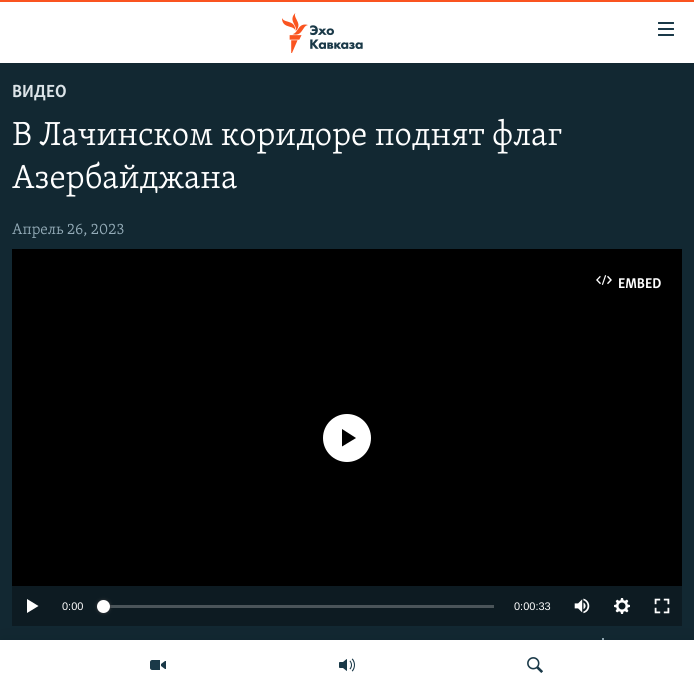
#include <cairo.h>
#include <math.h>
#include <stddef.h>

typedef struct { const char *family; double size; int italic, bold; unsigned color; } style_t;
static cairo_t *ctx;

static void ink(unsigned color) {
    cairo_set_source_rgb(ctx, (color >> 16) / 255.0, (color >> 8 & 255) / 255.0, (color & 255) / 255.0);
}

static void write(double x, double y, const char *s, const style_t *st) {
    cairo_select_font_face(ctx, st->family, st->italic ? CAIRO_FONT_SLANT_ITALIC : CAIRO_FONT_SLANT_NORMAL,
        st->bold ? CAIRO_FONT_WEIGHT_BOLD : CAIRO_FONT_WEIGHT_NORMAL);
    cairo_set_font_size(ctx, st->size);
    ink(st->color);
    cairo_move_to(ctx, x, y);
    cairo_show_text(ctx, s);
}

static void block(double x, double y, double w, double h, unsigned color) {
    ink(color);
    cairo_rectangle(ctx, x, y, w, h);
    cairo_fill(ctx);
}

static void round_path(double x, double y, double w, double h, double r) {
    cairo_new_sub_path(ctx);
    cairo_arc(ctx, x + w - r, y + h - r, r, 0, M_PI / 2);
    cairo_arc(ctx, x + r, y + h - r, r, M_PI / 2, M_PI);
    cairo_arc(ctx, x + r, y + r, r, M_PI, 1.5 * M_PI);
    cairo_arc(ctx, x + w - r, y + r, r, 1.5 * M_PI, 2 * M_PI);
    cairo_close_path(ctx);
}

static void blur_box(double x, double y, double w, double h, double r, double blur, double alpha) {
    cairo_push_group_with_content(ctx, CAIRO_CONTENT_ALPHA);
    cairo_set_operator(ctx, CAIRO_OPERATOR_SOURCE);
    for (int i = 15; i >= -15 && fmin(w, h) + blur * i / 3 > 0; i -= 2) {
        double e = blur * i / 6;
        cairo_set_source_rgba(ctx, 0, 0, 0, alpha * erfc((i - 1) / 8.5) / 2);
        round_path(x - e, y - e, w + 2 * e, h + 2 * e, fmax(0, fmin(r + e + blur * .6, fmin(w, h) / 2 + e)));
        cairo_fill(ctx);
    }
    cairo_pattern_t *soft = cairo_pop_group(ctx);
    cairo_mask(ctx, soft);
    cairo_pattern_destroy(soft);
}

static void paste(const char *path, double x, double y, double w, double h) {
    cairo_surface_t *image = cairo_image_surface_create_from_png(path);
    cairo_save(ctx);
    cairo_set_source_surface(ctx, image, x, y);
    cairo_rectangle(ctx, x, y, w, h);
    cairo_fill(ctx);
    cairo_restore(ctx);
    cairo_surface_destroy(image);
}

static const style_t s1 = {"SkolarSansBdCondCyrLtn", 18, 0, 1, 0xdce4e8};
static const style_t s2 = {"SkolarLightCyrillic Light", 34.25, 0, 0, 0xffffff};
static const style_t s3 = {"SkolarLightCyrillic Light", 15.75, 0, 0, 0x95adb9};
static const style_t s4 = {"SkolarSansBdCondCyrLtn", 14.5, 0, 1, 0xffffff};
static const style_t s5 = {"Liberation Sans", 11, 0, 0, 0xffffff};

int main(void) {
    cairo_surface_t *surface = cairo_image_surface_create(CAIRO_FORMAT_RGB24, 694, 690);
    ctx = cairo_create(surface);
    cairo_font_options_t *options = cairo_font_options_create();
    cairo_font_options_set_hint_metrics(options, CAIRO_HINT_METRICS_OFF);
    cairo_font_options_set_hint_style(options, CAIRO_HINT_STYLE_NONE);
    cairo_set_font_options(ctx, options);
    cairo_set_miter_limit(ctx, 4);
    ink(0xffffff);
    cairo_paint(ctx);
    block(0, 0, 694, 2, 0xfa5420);
    paste("pic1.png", 282, 13, 81, 40);
    paste("pic2.png", 658, 22, 16, 14);
    block(0, 63, 694, 577, 0x122832);
    block(12, 586, 670, 40, 0x0d1b22);
    ink(0xffffff);
    cairo_new_path(ctx);
    cairo_move_to(ctx, 27, 613);
    cairo_line_to(ctx, 38.5, 606);
    cairo_line_to(ctx, 27, 599);
    cairo_close_path(ctx);
    cairo_fill(ctx);
    block(103, 605, 391, 3, 0x4a5459);
    ink(0x414144);
    blur_box(97, 600, 13, 13, 6.5, 1.5, 1);
    ink(0xffffff);
    cairo_arc(ctx, 103.5, 606.5, 6.5, 0, 2 * M_PI);
    cairo_fill(ctx);
    paste("pic7.png", 574, 598, 16, 16);
    paste("pic8.png", 614, 598, 16, 16);
    paste("pic9.png", 654, 598, 16, 16);
    paste("pic10.png", 602, 638, 2, 2);
    ink(0x000000);
    blur_box(0, 640, 694, 50, 0, 10, 0.1);
    block(0, 640, 694, 50, 0xffffff);
    paste("pic3.png", 150, 660, 16, 10);
    paste("pic4.png", 339, 658, 16, 14);
    paste("pic5.png", 527, 657, 16, 16);
    write(12, 97, "ВИДЕО", &s1);
    write(12, 145, "В Лачинском коридоре поднят флаг", &s2);
    write(12, 188, "Азербайджана", &s2);
    write(12, 234, "Апрель 26, 2023", &s3);
    block(12, 249, 670, 337, 0x000000);
    paste("pic6.png", 596, 275, 16, 10);
    write(618, 288, "EMBED", &s4);
    cairo_new_path(ctx);
    cairo_arc(ctx, 347, 438, 24, 0, 2 * M_PI);
    cairo_fill(ctx);
    ink(0x000000);
    cairo_new_path(ctx);
    cairo_move_to(ctx, 342, 446.5);
    cairo_line_to(ctx, 356, 438);
    cairo_line_to(ctx, 342, 429);
    cairo_close_path(ctx);
    cairo_fill(ctx);
    write(62, 610, "0:00", &s5);
    write(514, 610, "0:00:33", &s5);
    cairo_surface_write_to_png(surface, "screenshot.png");
    cairo_font_options_destroy(options);
    cairo_destroy(ctx);
    cairo_surface_destroy(surface);
    return 0;
}
